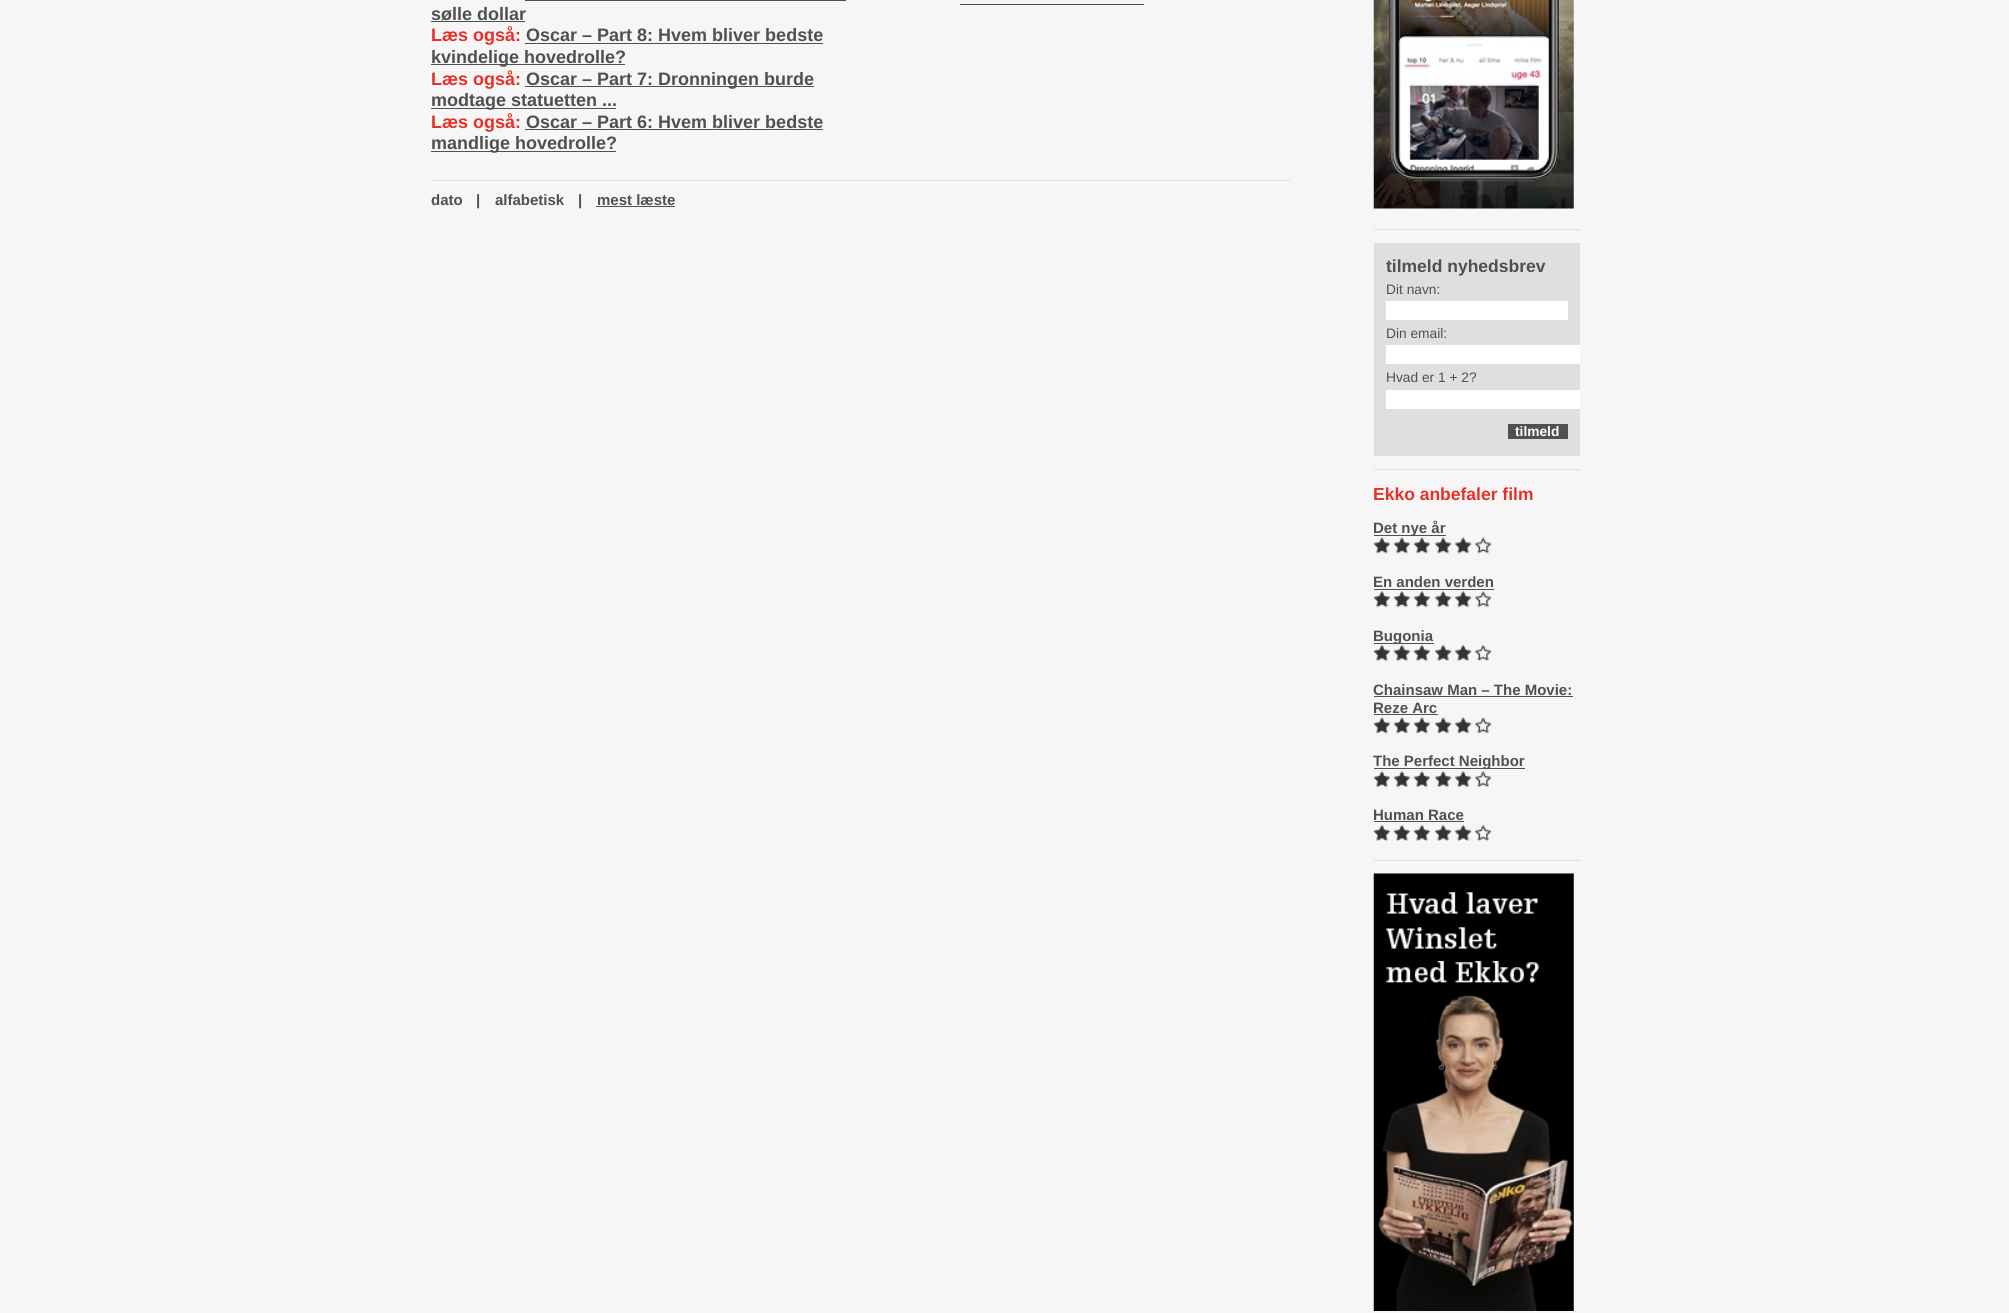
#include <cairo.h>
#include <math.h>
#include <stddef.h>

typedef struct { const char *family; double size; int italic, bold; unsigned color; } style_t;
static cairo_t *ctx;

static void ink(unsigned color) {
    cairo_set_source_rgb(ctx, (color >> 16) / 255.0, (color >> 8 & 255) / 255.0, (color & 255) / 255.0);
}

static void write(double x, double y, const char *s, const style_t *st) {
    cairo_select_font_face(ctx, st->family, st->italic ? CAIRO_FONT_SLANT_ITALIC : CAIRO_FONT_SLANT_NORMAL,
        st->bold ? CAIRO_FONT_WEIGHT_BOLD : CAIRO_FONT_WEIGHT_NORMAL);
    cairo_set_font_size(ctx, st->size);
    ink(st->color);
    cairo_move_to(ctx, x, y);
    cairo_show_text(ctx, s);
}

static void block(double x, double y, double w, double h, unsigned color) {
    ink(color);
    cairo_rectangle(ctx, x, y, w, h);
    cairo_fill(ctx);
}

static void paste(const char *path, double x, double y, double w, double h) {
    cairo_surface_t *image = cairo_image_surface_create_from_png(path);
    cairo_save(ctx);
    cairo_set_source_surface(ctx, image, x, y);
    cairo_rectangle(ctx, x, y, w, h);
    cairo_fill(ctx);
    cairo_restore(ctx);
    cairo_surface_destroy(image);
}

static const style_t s1 = {"Liberation Sans", 18, 0, 1, 0x505050};
static const style_t s2 = {"Liberation Sans", 18, 0, 1, 0xe73029};
static const style_t s3 = {"Liberation Sans", 15, 0, 1, 0x505050};
static const style_t s4 = {"Liberation Sans", 17.5, 0, 1, 0x505050};
static const style_t s5 = {"Liberation Sans", 13.75, 0, 0, 0x505050};
static const style_t s6 = {"Liberation Sans", 13.75, 0, 1, 0xffffff};
static const style_t s7 = {"Liberation Sans", 17.5, 0, 1, 0xe73029};

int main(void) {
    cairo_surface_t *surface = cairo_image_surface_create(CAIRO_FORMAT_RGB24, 2009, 1313);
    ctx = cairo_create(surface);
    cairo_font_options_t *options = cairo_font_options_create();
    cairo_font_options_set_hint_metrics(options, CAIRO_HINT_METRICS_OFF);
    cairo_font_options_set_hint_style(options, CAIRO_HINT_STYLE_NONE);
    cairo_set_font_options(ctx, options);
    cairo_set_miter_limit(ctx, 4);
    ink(0xf6f6f6);
    cairo_paint(ctx);
    block(960, 4, 184, 1, 0x505050);
    write(431, 20, "sølle dollar", &s1);
    block(525, 0, 321, 1, 0x505050);
    block(431, 21, 94, 1, 0x505050);
    write(431, 41, "Læs også:", &s2);
    write(526, 41, "Oscar – Part 8: Hvem bliver bedste", &s1);
    block(525, 43, 298, 1, 0x505050);
    block(431, 64, 194, 1, 0x505050);
    write(431, 63, "kvindelige hovedrolle?", &s1);
    write(431, 85, "Læs også:", &s2);
    block(525, 86, 289, 1, 0x505050);
    write(526, 85, "Oscar – Part 7: Dronningen burde", &s1);
    block(431, 108, 185, 1, 0x505050);
    write(431, 106, "modtage statuetten ...", &s1);
    write(431, 128, "Læs også:", &s2);
    write(526, 128, "Oscar – Part 6: Hvem bliver bedste", &s1);
    block(525, 129, 298, 1, 0x505050);
    block(431, 151, 185, 1, 0x505050);
    write(431, 149, "mandlige hovedrolle?", &s1);
    block(431, 180, 859, 1, 0xe0e0e0);
    write(431, 205, "dato", &s3);
    write(476, 205, "|", &s3);
    write(495, 205, "alfabetisk", &s3);
    write(578, 205, "|", &s3);
    write(597, 205, "mest læste", &s3);
    block(596, 206, 79, 1, 0x505050);
    paste("pic1.png", 1373, 0, 201, 209);
    block(1374, 229, 206, 1, 0xe0e0e0);
    block(1374, 243, 206, 213, 0xdfdfdf);
    write(1386, 272, "tilmeld nyhedsbrev", &s4);
    write(1386, 294, "Dit navn:", &s5);
    block(1386, 301, 182, 19, 0xffffff);
    write(1386, 338, "Din email:", &s5);
    block(1386, 345, 194, 19, 0xffffff);
    write(1386, 382, "Hvad er 1 + 2?", &s5);
    block(1386, 390, 194, 19, 0xffffff);
    block(1508, 424, 60, 15, 0x505050);
    write(1515, 436, "tilmeld", &s6);
    block(1374, 469, 206, 1, 0xe0e0e0);
    write(1373, 500, "Ekko anbefaler film", &s7);
    block(1374, 535, 72, 1, 0x505050);
    write(1373, 533, "Det nye år", &s3);
    paste("pic2.png", 1373, 537, 17, 17);
    paste("pic2.png", 1393, 537, 17, 17);
    paste("pic2.png", 1413, 537, 17, 17);
    paste("pic3.png", 1435, 537, 17, 17);
    paste("pic3.png", 1455, 537, 17, 17);
    paste("pic4.png", 1475, 537, 17, 17);
    write(1373, 587, "En anden verden", &s3);
    block(1374, 589, 120, 1, 0x505050);
    paste("pic5.png", 1373, 591, 17, 17);
    paste("pic5.png", 1393, 591, 17, 17);
    paste("pic5.png", 1413, 591, 17, 17);
    paste("pic6.png", 1435, 591, 17, 17);
    paste("pic6.png", 1455, 591, 17, 17);
    paste("pic7.png", 1475, 591, 17, 17);
    block(1374, 643, 60, 1, 0x505050);
    write(1373, 641, "Bugonia", &s3);
    paste("pic8.png", 1373, 644, 17, 17);
    paste("pic9.png", 1393, 644, 17, 17);
    paste("pic8.png", 1413, 644, 17, 17);
    paste("pic10.png", 1435, 644, 17, 17);
    paste("pic10.png", 1455, 644, 17, 17);
    paste("pic11.png", 1475, 644, 17, 17);
    write(1373, 695, "Chainsaw Man – The Movie:", &s3);
    block(1374, 696, 199, 1, 0x505050);
    write(1373, 713, "Reze Arc", &s3);
    block(1374, 714, 64, 1, 0x505050);
    paste("pic2.png", 1373, 717, 17, 17);
    paste("pic2.png", 1393, 717, 17, 17);
    paste("pic2.png", 1413, 717, 17, 17);
    paste("pic3.png", 1435, 717, 17, 17);
    paste("pic3.png", 1455, 717, 17, 17);
    paste("pic4.png", 1475, 717, 17, 17);
    block(1374, 768, 151, 1, 0x505050);
    write(1373, 766, "The Perfect Neighbor", &s3);
    paste("pic5.png", 1373, 771, 17, 17);
    paste("pic5.png", 1393, 771, 17, 17);
    paste("pic5.png", 1413, 771, 17, 17);
    paste("pic6.png", 1435, 771, 17, 17);
    paste("pic6.png", 1455, 771, 17, 17);
    paste("pic7.png", 1475, 771, 17, 17);
    write(1373, 820, "Human Race", &s3);
    block(1374, 821, 90, 1, 0x505050);
    paste("pic8.png", 1373, 824, 17, 17);
    paste("pic8.png", 1393, 824, 17, 17);
    paste("pic8.png", 1413, 824, 17, 17);
    paste("pic10.png", 1435, 824, 17, 17);
    paste("pic10.png", 1455, 824, 17, 17);
    paste("pic11.png", 1475, 824, 17, 17);
    block(1374, 860, 206, 1, 0xe0e0e0);
    paste("pic12.png", 1373, 873, 201, 438);
    cairo_surface_write_to_png(surface, "screenshot.png");
    cairo_font_options_destroy(options);
    cairo_destroy(ctx);
    cairo_surface_destroy(surface);
    return 0;
}
